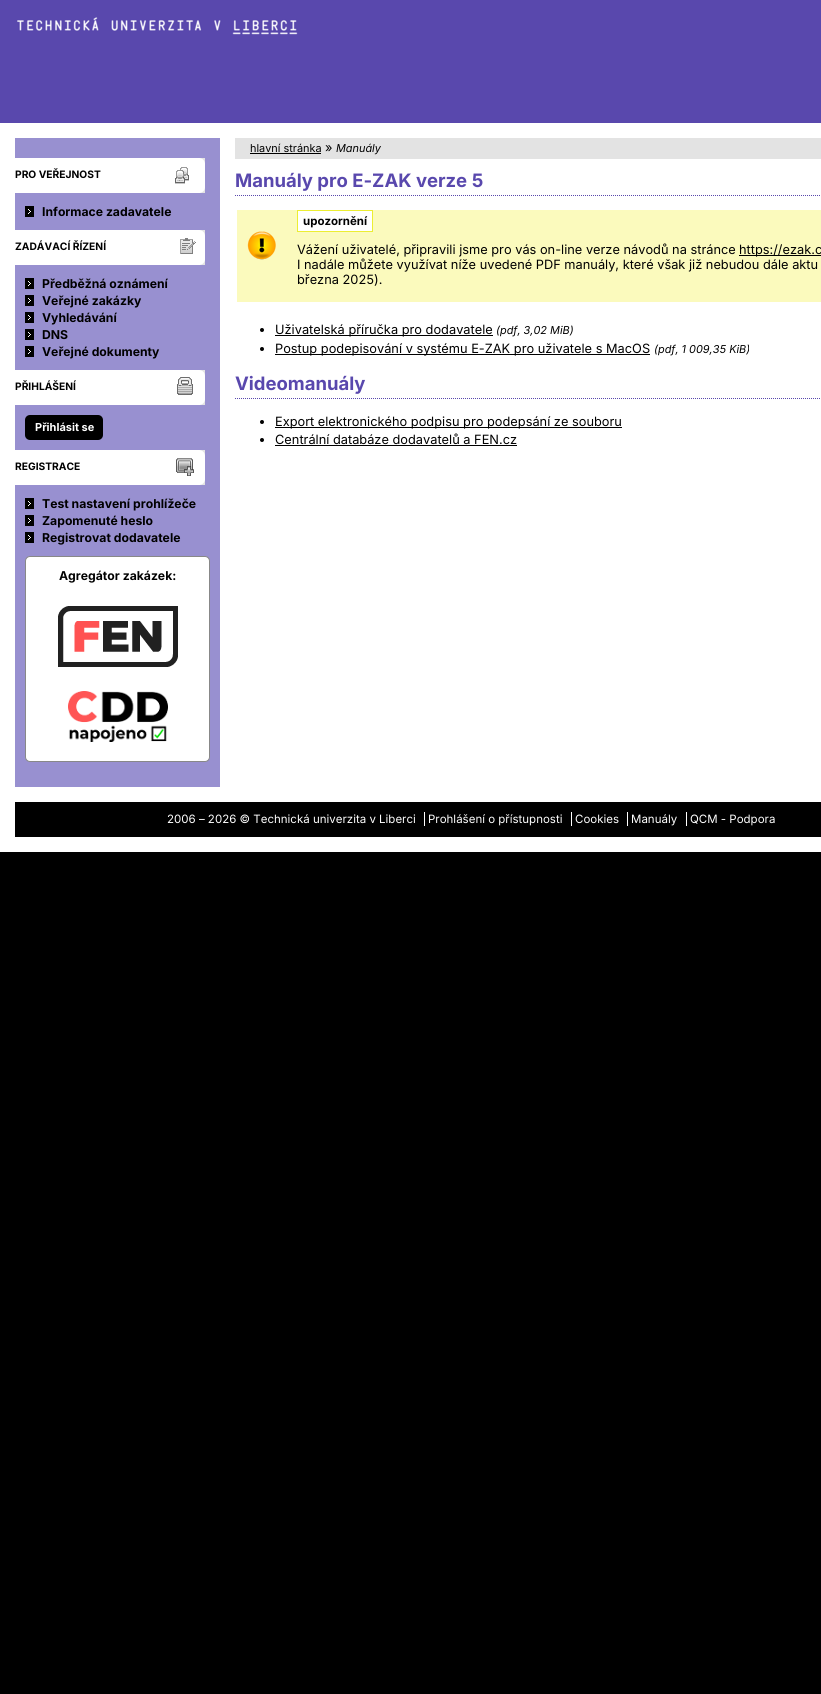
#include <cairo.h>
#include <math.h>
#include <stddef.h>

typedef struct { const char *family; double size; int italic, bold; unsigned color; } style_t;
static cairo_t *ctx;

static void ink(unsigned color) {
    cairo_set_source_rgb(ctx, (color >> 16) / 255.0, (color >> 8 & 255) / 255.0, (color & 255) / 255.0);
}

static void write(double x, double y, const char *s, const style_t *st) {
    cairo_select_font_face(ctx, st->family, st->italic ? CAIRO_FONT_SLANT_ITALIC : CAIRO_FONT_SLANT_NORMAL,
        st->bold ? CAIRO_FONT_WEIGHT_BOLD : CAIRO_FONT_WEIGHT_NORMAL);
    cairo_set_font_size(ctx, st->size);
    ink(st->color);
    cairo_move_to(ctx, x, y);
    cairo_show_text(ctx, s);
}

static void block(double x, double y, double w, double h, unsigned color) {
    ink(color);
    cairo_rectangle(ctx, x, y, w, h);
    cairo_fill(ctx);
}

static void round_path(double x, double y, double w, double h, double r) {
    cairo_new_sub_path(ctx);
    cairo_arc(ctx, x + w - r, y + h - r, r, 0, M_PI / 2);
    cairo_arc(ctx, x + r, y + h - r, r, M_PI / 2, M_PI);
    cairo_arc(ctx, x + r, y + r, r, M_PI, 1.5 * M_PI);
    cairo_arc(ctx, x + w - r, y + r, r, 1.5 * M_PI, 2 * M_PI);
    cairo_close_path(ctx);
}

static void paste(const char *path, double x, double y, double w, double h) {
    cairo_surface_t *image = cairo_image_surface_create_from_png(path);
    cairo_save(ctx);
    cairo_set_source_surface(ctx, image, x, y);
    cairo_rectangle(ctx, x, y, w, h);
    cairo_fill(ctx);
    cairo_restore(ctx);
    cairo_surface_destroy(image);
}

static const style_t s1 = {"Inter", 10.25, 0, 1, 0x000000};
static const style_t s2 = {"Inter", 12.2, 0, 1, 0x000000};
static const style_t s3 = {"Inter", 11, 0, 1, 0xffffff};
static const style_t s4 = {"Inter", 10.9, 0, 0, 0x000000};
static const style_t s5 = {"Inter", 12.8, 0, 0, 0x000000};
static const style_t s6 = {"Inter", 10.9, 1, 0, 0x000000};
static const style_t s7 = {"Inter", 18.5, 0, 1, 0x5948ad};
static const style_t s8 = {"Inter", 11.5, 0, 1, 0x000000};
static const style_t s9 = {"Inter", 11.5, 0, 0, 0xffffff};

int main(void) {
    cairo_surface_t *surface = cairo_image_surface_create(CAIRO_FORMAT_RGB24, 821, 1694);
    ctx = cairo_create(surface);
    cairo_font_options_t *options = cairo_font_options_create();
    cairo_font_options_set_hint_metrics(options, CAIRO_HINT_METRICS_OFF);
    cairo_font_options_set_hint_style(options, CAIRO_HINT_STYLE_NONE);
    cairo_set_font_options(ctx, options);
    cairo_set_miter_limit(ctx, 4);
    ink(0x000000);
    cairo_paint(ctx);
    block(0, 0, 821, 123, 0x5948ad);
    paste("pic1.png", 17, 17, 281, 18);
    block(0, 123, 821, 729, 0xffffff);
    block(15, 138, 205, 649, 0x9890d0);
    paste("pic2.png", 15, 158, 190, 35);
    write(15, 178, "PRO VEŘEJNOST", &s1);
    paste("pic3.png", 25, 206, 9, 11);
    write(42, 216, "Informace zadavatele", &s2);
    paste("pic4.png", 15, 230, 190, 35);
    write(15, 250, "ZADÁVACÍ ŘÍZENÍ", &s1);
    paste("pic3.png", 25, 278, 9, 11);
    write(42, 288, "Předběžná oznámení", &s2);
    paste("pic3.png", 25, 295, 9, 11);
    write(42, 305, "Veřejné zakázky", &s2);
    paste("pic3.png", 25, 312, 9, 11);
    write(42, 322, "Vyhledávání", &s2);
    paste("pic3.png", 25, 329, 9, 11);
    write(42, 339, "DNS", &s2);
    paste("pic3.png", 25, 346, 9, 11);
    write(42, 356, "Veřejné dokumenty", &s2);
    paste("pic5.png", 15, 370, 190, 35);
    write(15, 390, "PŘIHLÁŠENÍ", &s1);
    round_path(25, 415, 78, 25, 5);
    cairo_fill(ctx);
    write(35, 431, "Přihlásit se", &s3);
    paste("pic6.png", 15, 450, 190, 35);
    write(15, 470, "REGISTRACE", &s1);
    paste("pic3.png", 25, 498, 9, 11);
    write(42, 508, "Test nastavení prohlížeče", &s2);
    paste("pic3.png", 25, 515, 9, 11);
    write(42, 525, "Zapomenuté heslo", &s2);
    paste("pic3.png", 25, 532, 9, 11);
    write(42, 542, "Registrovat dodavatele", &s2);
    ink(0xffffff);
    round_path(25.5, 556.5, 184, 205, 4.5);
    cairo_fill_preserve(ctx);
    ink(0x888888);
    cairo_set_line_width(ctx, 1);
    cairo_stroke(ctx);
    write(59, 580, "Agregátor zakázek:", &s2);
    paste("pic7.png", 58, 606, 120, 61);
    paste("pic8.png", 68, 691, 100, 51);
    block(235, 138, 586, 21, 0xe3e3e3);
    write(250, 152, "hlavní stránka", &s4);
    block(250, 153, 71, 1, 0x000000);
    write(325, 152, "»", &s5);
    write(336, 152, "Manuály", &s6);
    cairo_new_path(ctx);
    cairo_move_to(ctx, 235, 195.5);
    cairo_line_to(ctx, 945, 195.5);
    ink(0x5948ad);
    cairo_set_dash(ctx, (double[]){1, 1}, 2, 0);
    cairo_stroke(ctx);
    write(235, 187, "Manuály pro E-ZAK verze 5", &s7);
    block(237, 210, 584, 92, 0xfbfabd);
    paste("pic9.png", 247, 231, 29, 29);
    ink(0xffffff);
    cairo_rectangle(ctx, 297.5, 210.5, 75, 21);
    cairo_fill_preserve(ctx);
    ink(0xecee32);
    cairo_set_dash(ctx, NULL, 0, 0);
    cairo_stroke(ctx);
    write(303, 225, "upozornění", &s8);
    write(297, 254, "Vážení uživatelé, připravili jsme pro vás on-line verze návodů na stránce", &s5);
    block(739, 255, 82, 1, 0x000000);
    write(739, 254, "https://ezak.c", &s5);
    write(297, 269, "I nadále můžete využívat níže uvedené PDF manuály, které však již nebudou dále aktu", &s5);
    write(297, 284, "března 2025).", &s5);
    cairo_new_path(ctx);
    cairo_arc(ctx, 262, 330, 2, 0, 2 * M_PI);
    cairo_fill(ctx);
    block(275, 335, 218, 1, 0x000000);
    write(275, 334, "Uživatelská příručka pro dodavatele", &s5);
    write(496, 334, "(pdf, 3,02 MiB)", &s6);
    cairo_new_path(ctx);
    cairo_arc(ctx, 262, 349, 2, 0, 2 * M_PI);
    cairo_fill(ctx);
    block(275, 354, 375, 1, 0x000000);
    write(275, 353, "Postup podepisování v systému E-ZAK pro uživatele s MacOS", &s5);
    write(654, 353, "(pdf, 1 009,35 KiB)", &s6);
    cairo_new_path(ctx);
    cairo_move_to(ctx, 235, 398.5);
    cairo_line_to(ctx, 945, 398.5);
    ink(0x5948ad);
    cairo_set_dash(ctx, (double[]){1, 1}, 2, 0);
    cairo_stroke(ctx);
    write(235, 390, "Videomanuály", &s7);
    ink(0x000000);
    cairo_new_path(ctx);
    cairo_arc(ctx, 262, 422, 2, 0, 2 * M_PI);
    cairo_fill(ctx);
    block(275, 427, 347, 1, 0x000000);
    write(275, 426, "Export elektronického podpisu pro podepsání ze souboru", &s5);
    cairo_new_path(ctx);
    cairo_arc(ctx, 262, 440, 2, 0, 2 * M_PI);
    cairo_fill(ctx);
    write(275, 444, "Centrální databáze dodavatelů a FEN.cz", &s5);
    block(275, 445, 242, 1, 0x000000);
    block(15, 802, 806, 35, 0x000000);
    write(167, 823, "2006 – 2026 © Technická univerzita v Liberci", &s9);
    block(424, 812, 1, 14, 0xffffff);
    write(428, 823, "Prohlášení o přístupnosti", &s9);
    block(571, 812, 1, 14, 0xffffff);
    write(575, 823, "Cookies", &s9);
    block(627, 812, 1, 14, 0xffffff);
    write(631, 823, "Manuály", &s9);
    block(686, 812, 1, 14, 0xffffff);
    write(690, 823, "QCM - Podpora", &s9);
    cairo_surface_write_to_png(surface, "screenshot.png");
    cairo_font_options_destroy(options);
    cairo_destroy(ctx);
    cairo_surface_destroy(surface);
    return 0;
}
